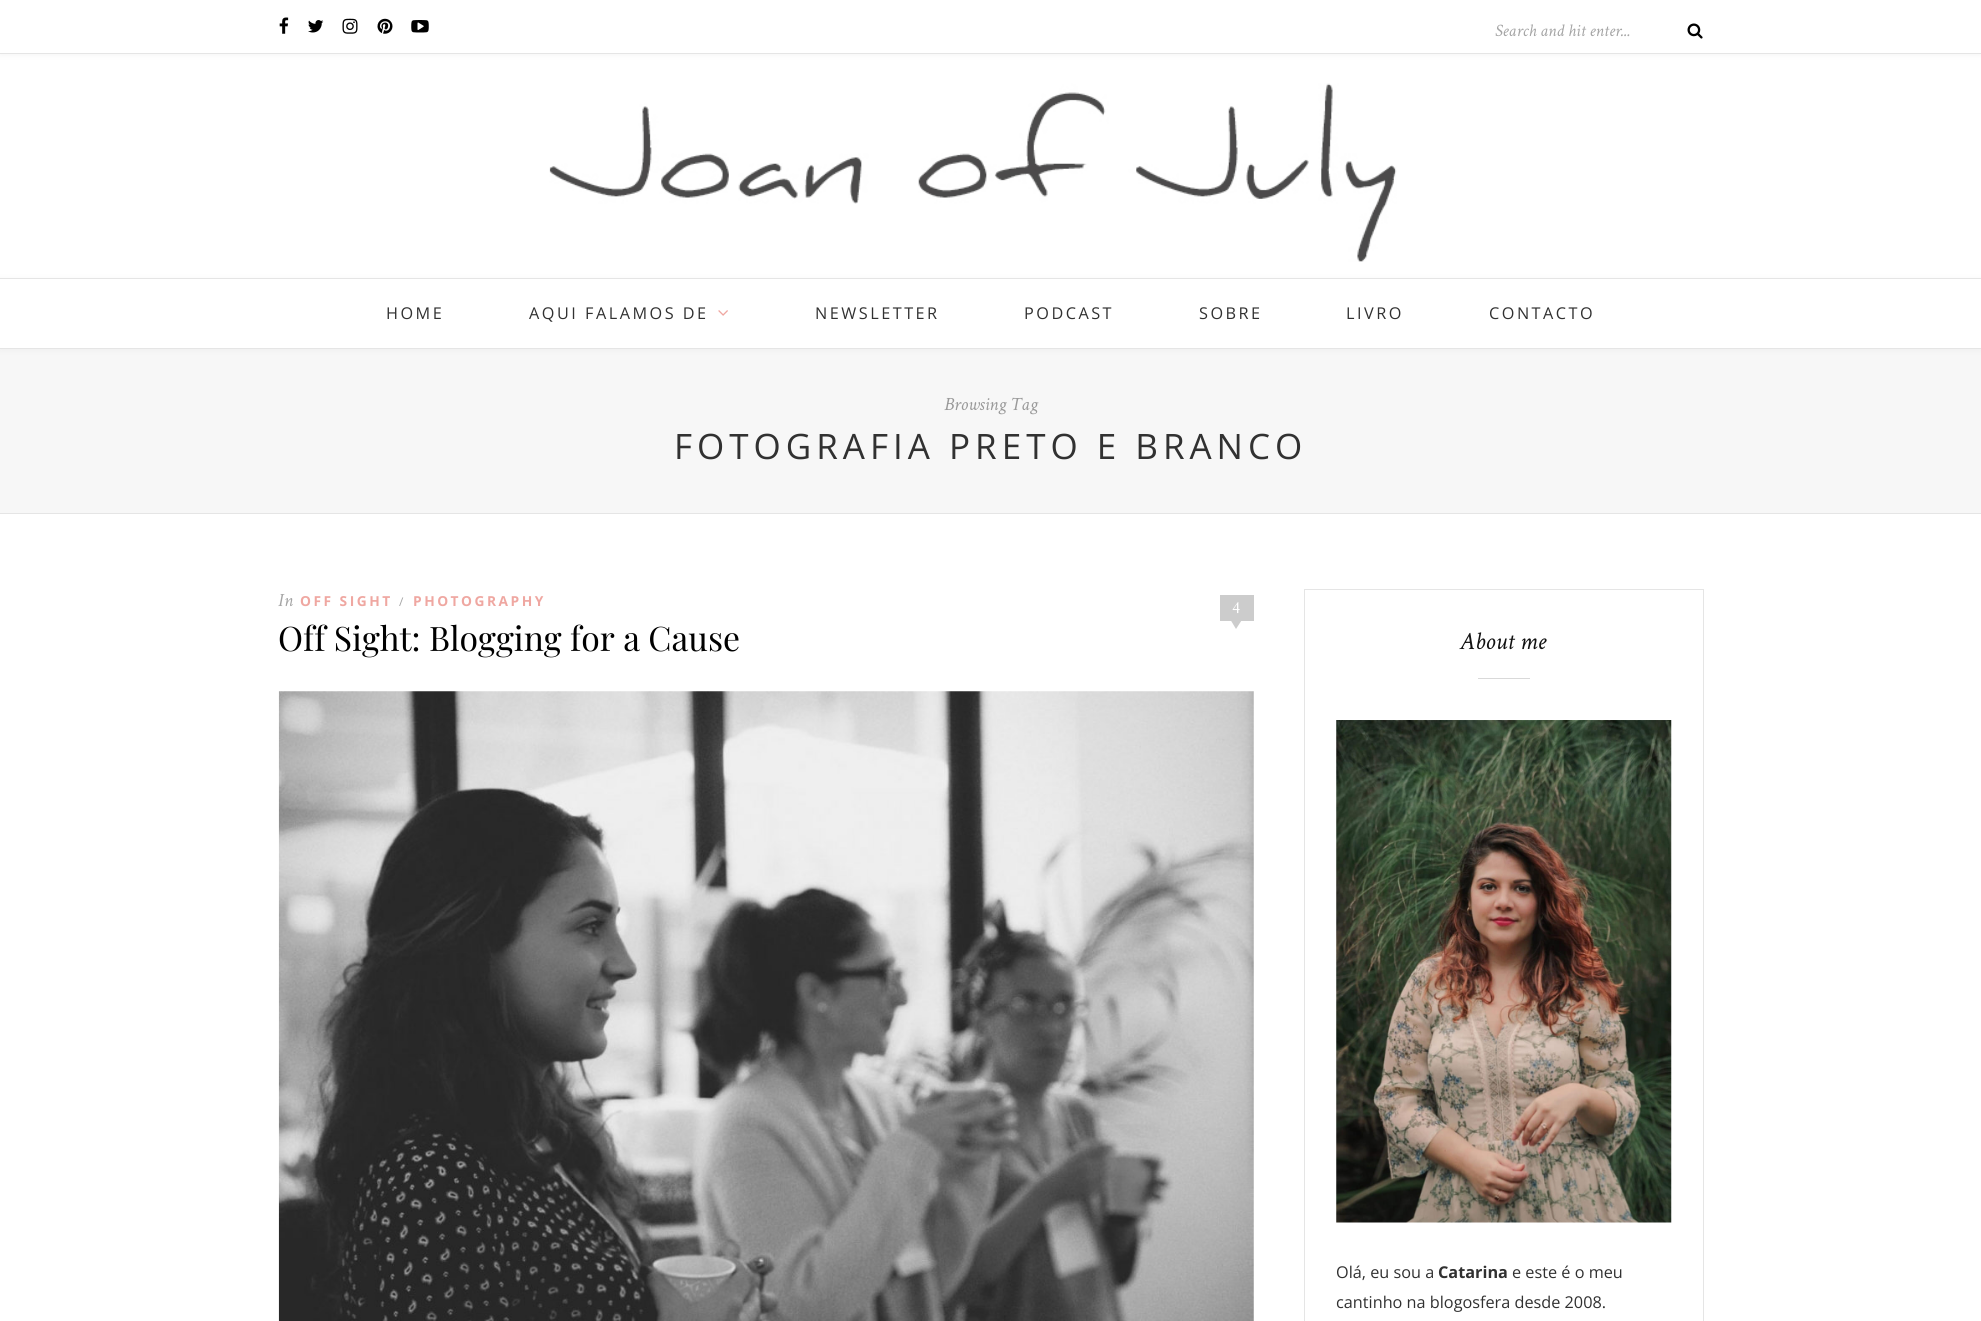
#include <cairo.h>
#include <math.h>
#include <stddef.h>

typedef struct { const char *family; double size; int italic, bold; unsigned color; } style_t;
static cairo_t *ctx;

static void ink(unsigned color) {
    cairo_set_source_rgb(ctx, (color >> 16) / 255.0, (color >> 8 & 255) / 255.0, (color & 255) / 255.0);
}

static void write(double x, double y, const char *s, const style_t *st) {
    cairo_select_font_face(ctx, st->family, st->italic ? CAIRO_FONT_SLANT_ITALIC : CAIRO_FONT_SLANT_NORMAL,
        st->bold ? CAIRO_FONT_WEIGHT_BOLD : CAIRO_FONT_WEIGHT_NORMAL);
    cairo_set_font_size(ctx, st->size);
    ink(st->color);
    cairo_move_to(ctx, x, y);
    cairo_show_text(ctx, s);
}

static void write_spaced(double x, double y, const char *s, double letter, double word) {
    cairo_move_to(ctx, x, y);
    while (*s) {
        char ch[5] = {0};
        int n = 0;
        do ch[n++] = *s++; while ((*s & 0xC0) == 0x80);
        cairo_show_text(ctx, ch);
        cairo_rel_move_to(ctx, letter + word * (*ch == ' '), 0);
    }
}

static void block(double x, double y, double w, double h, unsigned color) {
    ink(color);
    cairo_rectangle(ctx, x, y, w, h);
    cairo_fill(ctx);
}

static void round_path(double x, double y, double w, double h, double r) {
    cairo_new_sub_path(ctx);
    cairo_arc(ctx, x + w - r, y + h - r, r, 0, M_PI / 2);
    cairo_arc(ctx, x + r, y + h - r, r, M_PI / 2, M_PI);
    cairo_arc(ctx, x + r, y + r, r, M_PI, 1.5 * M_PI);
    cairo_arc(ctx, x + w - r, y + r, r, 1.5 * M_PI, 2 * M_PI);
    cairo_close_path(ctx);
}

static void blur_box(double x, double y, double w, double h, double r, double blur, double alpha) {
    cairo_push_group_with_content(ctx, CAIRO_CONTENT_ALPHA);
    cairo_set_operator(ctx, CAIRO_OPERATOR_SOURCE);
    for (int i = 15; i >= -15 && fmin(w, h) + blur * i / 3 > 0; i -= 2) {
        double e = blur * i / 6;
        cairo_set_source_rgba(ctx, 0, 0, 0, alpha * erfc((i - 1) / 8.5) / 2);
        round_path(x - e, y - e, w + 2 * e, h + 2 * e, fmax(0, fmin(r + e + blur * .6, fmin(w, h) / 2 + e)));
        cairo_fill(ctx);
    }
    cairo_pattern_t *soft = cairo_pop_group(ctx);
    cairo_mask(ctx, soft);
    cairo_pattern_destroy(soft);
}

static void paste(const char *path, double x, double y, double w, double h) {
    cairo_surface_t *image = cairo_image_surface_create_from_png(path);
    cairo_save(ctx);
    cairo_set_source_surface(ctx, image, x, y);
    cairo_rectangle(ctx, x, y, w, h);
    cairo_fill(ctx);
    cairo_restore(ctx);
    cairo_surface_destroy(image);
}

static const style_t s1 = {"Crimson Text", 17.5, 1, 0, 0xa5a5a5};
static const style_t s2 = {"Crimson Text", 18.75, 1, 0, 0x999999};
static const style_t s3 = {"Crimson Text", 18.75, 1, 0, 0xa5a5a5};
static const style_t s4 = {"Open Sans", 12, 0, 0, 0xa5a5a5};
static const style_t s5 = {"Crimson Text", 17.5, 0, 0, 0xffffff};
static const style_t s6 = {"Playfair Display", 33.75, 0, 0, 0x000000};
static const style_t s7 = {"Crimson Text", 25, 1, 0, 0x111111};
static const style_t s8 = {"Open Sans", 16.25, 0, 0, 0x313131};
static const style_t s9 = {"Open Sans", 16.25, 0, 1, 0x313131};

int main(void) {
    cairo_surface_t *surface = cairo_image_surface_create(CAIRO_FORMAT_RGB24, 1981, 1321);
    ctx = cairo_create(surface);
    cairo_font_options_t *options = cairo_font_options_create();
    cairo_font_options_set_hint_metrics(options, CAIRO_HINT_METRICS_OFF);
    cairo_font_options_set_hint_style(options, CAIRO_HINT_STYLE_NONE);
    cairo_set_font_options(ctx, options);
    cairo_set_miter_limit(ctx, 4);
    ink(0xffffff);
    cairo_paint(ctx);
    ink(0xbebebe);
    blur_box(0, 1, 1981, 54, 0, 3, 0.16);
    block(0, 0, 1981, 53, 0xffffff);
    block(0, 53, 1981, 1, 0xe5e5e5);
    paste("pic1.png", 279, 17, 10, 17);
    paste("pic2.png", 308, 20, 16, 13);
    paste("pic3.png", 342, 18, 16, 16);
    paste("pic4.png", 377, 18, 16, 16);
    paste("pic5.png", 411, 20, 18, 13);
    write(1495, 36, "Search and hit enter...", &s1);
    paste("pic6.png", 1687, 23, 16, 16);
    paste("pic7.png", 549, 83, 848, 179);
    block(0, 349, 1981, 164, 0xf7f7f7);
    ink(0xbebebe);
    blur_box(0, 279, 1981, 71, 0, 3, 0.16);
    block(0, 279, 1981, 69, 0xffffff);
    block(0, 278, 1981, 1, 0xe5e5e5);
    block(0, 348, 1981, 1, 0xe5e5e5);
    cairo_select_font_face(ctx, "Open Sans", CAIRO_FONT_SLANT_NORMAL, CAIRO_FONT_WEIGHT_NORMAL);
    cairo_set_font_size(ctx, 16.25);
    ink(0x313131);
    write_spaced(386, 319, "HOME", 2.5, 0);
    write_spaced(529, 319, "AQUI FALAMOS DE", 2.5, 0);
    paste("pic8.png", 718, 310, 10, 6);
    write_spaced(815, 319, "NEWSLETTER", 2.5, 0);
    write_spaced(1024, 319, "PODCAST", 2.5, 0);
    write_spaced(1199, 319, "SOBRE", 2.5, 0);
    write_spaced(1346, 319, "LIVRO", 2.5, 0);
    write_spaced(1489, 319, "CONTACTO", 2.5, 0);
    block(0, 513, 1981, 1, 0xe5e5e5);
    write(944, 410, "Browsing Tag", &s2);
    cairo_select_font_face(ctx, "Open Sans", CAIRO_FONT_SLANT_NORMAL, CAIRO_FONT_WEIGHT_NORMAL);
    cairo_set_font_size(ctx, 35);
    ink(0x313131);
    write_spaced(674, 459, "FOTOGRAFIA PRETO E BRANCO", 5, 0);
    write(278, 606, "In", &s3);
    cairo_select_font_face(ctx, "Open Sans", CAIRO_FONT_SLANT_NORMAL, CAIRO_FONT_WEIGHT_BOLD);
    cairo_set_font_size(ctx, 13.75);
    ink(0xefa7a1);
    write_spaced(300, 606, "OFF SIGHT", 2.5, 0);
    write(399, 606, "/", &s4);
    cairo_select_font_face(ctx, "Open Sans", CAIRO_FONT_SLANT_NORMAL, CAIRO_FONT_WEIGHT_BOLD);
    cairo_set_font_size(ctx, 13.75);
    ink(0xefa7a1);
    write_spaced(413, 606, "PHOTOGRAPHY", 2.5, 0);
    block(1220, 595, 34, 26, 0xcccccc);
    write(1232, 613, "4", &s5);
    ink(0xcccccc);
    cairo_new_path(ctx);
    cairo_move_to(ctx, 1230, 619);
    cairo_line_to(ctx, 1242.5, 619);
    cairo_line_to(ctx, 1236, 629);
    cairo_close_path(ctx);
    cairo_fill(ctx);
    write(278, 651, "Off Sight: Blogging for a Cause", &s6);
    paste("pic9.png", 278, 691, 976, 630);
    cairo_rectangle(ctx, 1304.5, 589.5, 399, 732);
    ink(0xe5e5e5);
    cairo_set_line_width(ctx, 1);
    cairo_stroke(ctx);
    write(1460, 649, "About me", &s7);
    block(1478, 678, 52, 1, 0xd9d9d9);
    paste("pic10.png", 1336, 720, 336, 503);
    write(1336, 1278, "Olá, eu sou a", &s8);
    write(1438, 1278, "Catarina", &s9);
    write(1512, 1278, "e este é o meu", &s8);
    write(1336, 1308, "cantinho na blogosfera desde 2008.", &s8);
    cairo_surface_write_to_png(surface, "screenshot.png");
    cairo_font_options_destroy(options);
    cairo_destroy(ctx);
    cairo_surface_destroy(surface);
    return 0;
}
